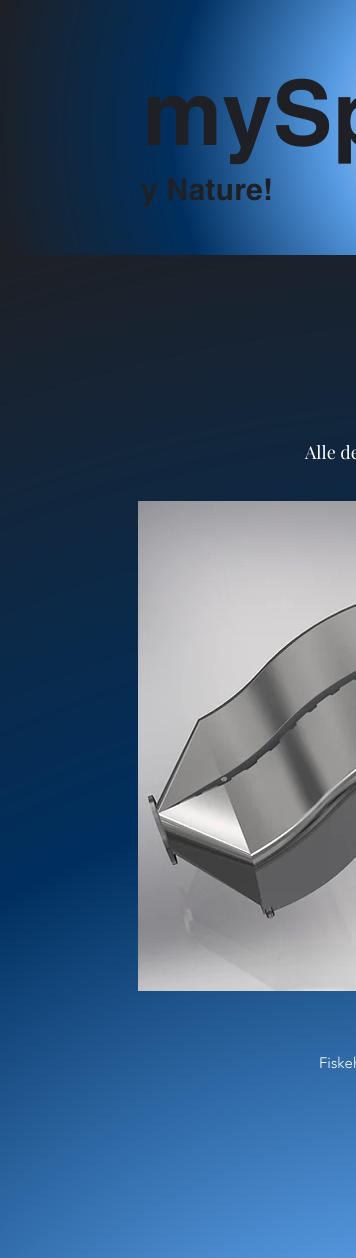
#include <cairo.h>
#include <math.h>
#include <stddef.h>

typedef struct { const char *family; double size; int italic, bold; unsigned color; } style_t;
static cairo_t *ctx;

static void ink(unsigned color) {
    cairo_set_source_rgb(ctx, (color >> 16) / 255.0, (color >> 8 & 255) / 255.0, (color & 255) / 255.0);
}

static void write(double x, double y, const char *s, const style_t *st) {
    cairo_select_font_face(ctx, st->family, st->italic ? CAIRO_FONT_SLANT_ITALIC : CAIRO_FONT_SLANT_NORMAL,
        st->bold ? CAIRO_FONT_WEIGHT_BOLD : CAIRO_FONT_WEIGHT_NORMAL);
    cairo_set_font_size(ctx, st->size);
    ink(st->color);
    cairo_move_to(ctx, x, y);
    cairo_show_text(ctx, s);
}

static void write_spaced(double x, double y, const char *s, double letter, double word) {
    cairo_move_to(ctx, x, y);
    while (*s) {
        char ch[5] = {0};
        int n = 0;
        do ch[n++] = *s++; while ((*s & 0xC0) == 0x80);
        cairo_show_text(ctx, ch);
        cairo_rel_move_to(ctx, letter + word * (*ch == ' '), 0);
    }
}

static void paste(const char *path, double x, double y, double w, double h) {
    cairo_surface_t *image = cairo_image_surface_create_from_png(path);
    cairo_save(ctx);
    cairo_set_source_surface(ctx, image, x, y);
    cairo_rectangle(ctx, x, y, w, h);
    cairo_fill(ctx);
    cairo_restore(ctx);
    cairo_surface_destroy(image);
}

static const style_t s1 = {"Playfair Display", 18, 0, 0, 0xffffff};
static const style_t s2 = {"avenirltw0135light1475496 Light", 15, 0, 0, 0xffffff};

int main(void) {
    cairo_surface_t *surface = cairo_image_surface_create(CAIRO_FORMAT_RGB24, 356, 1258);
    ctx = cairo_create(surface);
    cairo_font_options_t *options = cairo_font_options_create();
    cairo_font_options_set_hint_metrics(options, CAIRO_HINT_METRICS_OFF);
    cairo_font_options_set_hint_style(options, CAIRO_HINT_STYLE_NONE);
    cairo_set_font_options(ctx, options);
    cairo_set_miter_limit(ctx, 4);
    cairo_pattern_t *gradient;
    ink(0xffffff);
    cairo_paint(ctx);
    gradient = cairo_pattern_create_radial(490, 128, 0, 490, 128, 506);
    cairo_pattern_add_color_stop_rgba(gradient, 0, 0.894, 0.922, 0.988, 1);
    cairo_pattern_add_color_stop_rgba(gradient, 0.32, 0.345, 0.608, 0.89, 1);
    cairo_pattern_add_color_stop_rgba(gradient, 0.63, 0, 0.184, 0.369, 1);
    cairo_pattern_add_color_stop_rgba(gradient, 1, 0.118, 0.125, 0.145, 1);
    cairo_set_source(ctx, gradient);
    cairo_pattern_destroy(gradient);
    cairo_rectangle(ctx, 0, 0, 356, 255);
    cairo_fill(ctx);
    cairo_select_font_face(ctx, "helvetica", CAIRO_FONT_SLANT_NORMAL, CAIRO_FONT_WEIGHT_BOLD);
    cairo_set_font_size(ctx, 90);
    ink(0x1e2025);
    write_spaced(142, 145, "mySp", 0.25, 0);
    cairo_set_font_size(ctx, 30);
    write_spaced(141, 200, "y Nature!", 0.25, 0);
    gradient = cairo_pattern_create_radial(490, 1785, 0, 490, 1785, 1607);
    cairo_pattern_add_color_stop_rgba(gradient, 0, 0.894, 0.922, 0.988, 1);
    cairo_pattern_add_color_stop_rgba(gradient, 0.32, 0.345, 0.608, 0.89, 1);
    cairo_pattern_add_color_stop_rgba(gradient, 0.63, 0, 0.184, 0.369, 1);
    cairo_pattern_add_color_stop_rgba(gradient, 1, 0.118, 0.125, 0.145, 1);
    cairo_set_source(ctx, gradient);
    cairo_pattern_destroy(gradient);
    cairo_rectangle(ctx, 0, 255, 356, 1003);
    cairo_fill(ctx);
    write(305, 459, "Alle de", &s1);
    paste("pic1.png", 138, 501, 218, 490);
    write(319, 1068, "Fiskeh", &s2);
    cairo_surface_write_to_png(surface, "screenshot.png");
    cairo_font_options_destroy(options);
    cairo_destroy(ctx);
    cairo_surface_destroy(surface);
    return 0;
}
